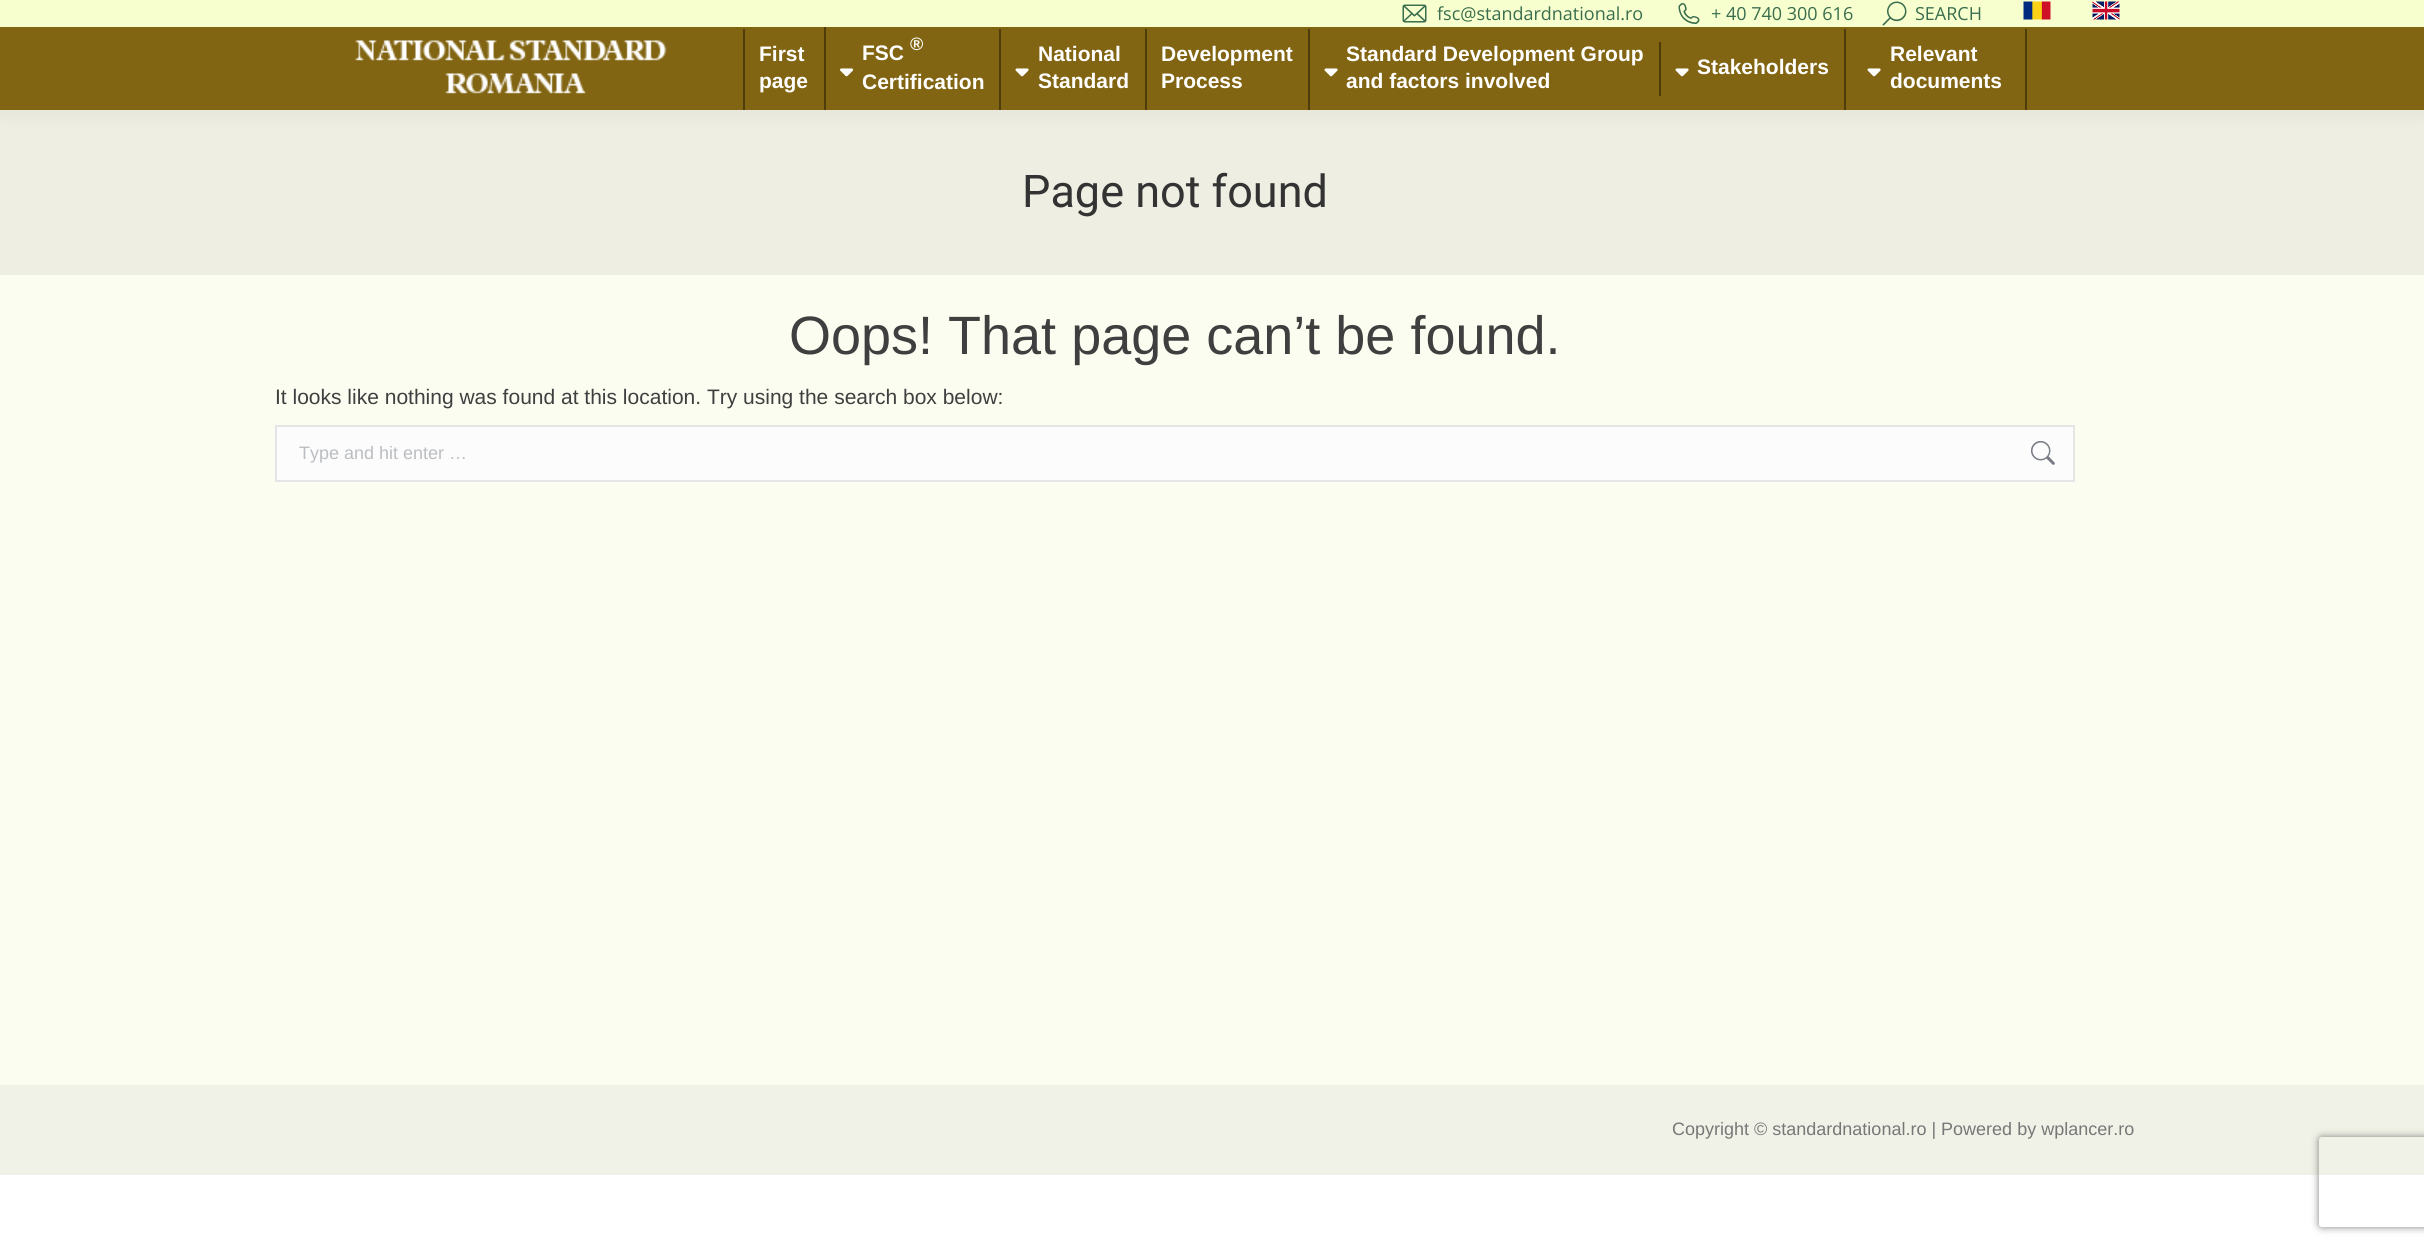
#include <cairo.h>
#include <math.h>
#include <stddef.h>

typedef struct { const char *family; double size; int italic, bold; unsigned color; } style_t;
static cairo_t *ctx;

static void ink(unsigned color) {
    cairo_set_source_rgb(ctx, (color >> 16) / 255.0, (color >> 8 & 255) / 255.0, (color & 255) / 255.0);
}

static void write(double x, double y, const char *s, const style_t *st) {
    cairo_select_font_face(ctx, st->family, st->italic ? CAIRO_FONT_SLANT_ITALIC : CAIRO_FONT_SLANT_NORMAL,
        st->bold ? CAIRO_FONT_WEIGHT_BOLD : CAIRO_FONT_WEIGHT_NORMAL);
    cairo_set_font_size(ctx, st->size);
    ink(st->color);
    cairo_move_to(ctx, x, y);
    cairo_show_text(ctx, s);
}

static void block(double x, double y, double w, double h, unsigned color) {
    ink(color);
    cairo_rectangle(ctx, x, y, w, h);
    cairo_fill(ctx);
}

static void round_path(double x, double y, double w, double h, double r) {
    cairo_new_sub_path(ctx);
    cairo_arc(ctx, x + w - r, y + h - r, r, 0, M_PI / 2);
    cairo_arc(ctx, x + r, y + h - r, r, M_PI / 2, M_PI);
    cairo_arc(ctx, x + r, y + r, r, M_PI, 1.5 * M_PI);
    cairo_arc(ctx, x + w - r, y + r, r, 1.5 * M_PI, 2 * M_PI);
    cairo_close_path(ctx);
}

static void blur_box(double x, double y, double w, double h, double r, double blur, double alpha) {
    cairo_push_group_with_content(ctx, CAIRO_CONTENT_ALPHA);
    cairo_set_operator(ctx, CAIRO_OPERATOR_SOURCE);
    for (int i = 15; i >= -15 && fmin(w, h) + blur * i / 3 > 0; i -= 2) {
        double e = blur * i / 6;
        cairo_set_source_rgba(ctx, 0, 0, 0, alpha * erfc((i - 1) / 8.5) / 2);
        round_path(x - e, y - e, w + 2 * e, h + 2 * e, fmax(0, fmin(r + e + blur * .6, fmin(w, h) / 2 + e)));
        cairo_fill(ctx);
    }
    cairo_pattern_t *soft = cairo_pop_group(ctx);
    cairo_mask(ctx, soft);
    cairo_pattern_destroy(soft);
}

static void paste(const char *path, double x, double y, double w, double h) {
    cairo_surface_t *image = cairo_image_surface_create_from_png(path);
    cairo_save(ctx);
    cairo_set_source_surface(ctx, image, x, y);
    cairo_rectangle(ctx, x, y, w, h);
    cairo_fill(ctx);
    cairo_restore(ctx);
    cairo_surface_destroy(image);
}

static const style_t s1 = {"Open Sans", 18, 0, 0, 0x396d4e};
static const style_t s2 = {"Liberation Sans", 21, 0, 1, 0xffffff};
static const style_t s3 = {"Liberation Sans", 18, 0, 1, 0xffffff};
static const style_t s4 = {"Roboto", 45, 0, 0, 0x333333};
static const style_t s5 = {"Liberation Sans", 54, 0, 0, 0x3f3f3f};
static const style_t s6 = {"Liberation Sans", 21, 0, 0, 0x3f3f3f};
static const style_t s7 = {"Liberation Sans", 18, 0, 0, 0xbabdc1};
static const style_t s8 = {"Liberation Sans", 18, 0, 0, 0x777777};

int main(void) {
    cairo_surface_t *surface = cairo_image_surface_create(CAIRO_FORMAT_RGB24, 2424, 1248);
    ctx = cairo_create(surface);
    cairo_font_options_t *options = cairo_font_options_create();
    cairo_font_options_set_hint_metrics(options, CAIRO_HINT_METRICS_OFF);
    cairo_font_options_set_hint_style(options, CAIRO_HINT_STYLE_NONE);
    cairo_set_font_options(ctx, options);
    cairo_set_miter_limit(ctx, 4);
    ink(0xffffff);
    cairo_paint(ctx);
    block(0, 275, 2424, 810, 0xfcfdf1);
    block(0, 110, 2424, 165, 0xeeeee2);
    ink(0x000000);
    blur_box(-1, -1, 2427, 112, 0, 11, 0.07);
    block(0, 27, 2424, 83, 0x826512);
    block(0, 0, 2424, 27, 0xf8ffce);
    paste("pic1.png", 1402, 4, 25, 19);
    write(1437, 20, "fsc@standardnational.ro", &s1);
    paste("pic2.png", 1678, 3, 22, 21);
    write(1711, 20, "+ 40 740 300 616", &s1);
    paste("pic3.png", 1882, 1, 25, 25);
    write(1915, 20, "SEARCH", &s1);
    paste("pic4.png", 2023, 1, 28, 19);
    paste("pic5.png", 2092, 1, 28, 19);
    paste("pic6.png", 355, 40, 312, 54);
    block(743, 29, 2, 81, 0x4e3d0b);
    write(759, 61, "First", &s2);
    write(759, 88, "page", &s2);
    block(824, 27, 2, 83, 0x4e3d0b);
    paste("pic7.png", 840, 68, 14, 9);
    write(862, 60, "FSC", &s2);
    write(910, 50, "®", &s3);
    write(862, 89, "Certification", &s2);
    block(999, 29, 2, 81, 0x4e3d0b);
    paste("pic8.png", 1015, 68, 14, 9);
    write(1038, 61, "National", &s2);
    write(1038, 88, "Standard", &s2);
    block(1145, 29, 2, 81, 0x4e3d0b);
    write(1161, 61, "Development", &s2);
    write(1161, 88, "Process", &s2);
    block(1308, 29, 2, 81, 0x4e3d0b);
    paste("pic8.png", 1324, 68, 14, 9);
    write(1346, 61, "Standard Development Group", &s2);
    write(1346, 88, "and factors involved", &s2);
    block(1659, 42, 2, 54, 0x4e3d0b);
    paste("pic8.png", 1675, 68, 14, 9);
    write(1697, 74, "Stakeholders", &s2);
    block(2025, 29, 2, 81, 0x4e3d0b);
    block(1844, 29, 2, 81, 0x4e3d0b);
    paste("pic8.png", 1867, 68, 14, 9);
    write(1890, 61, "Relevant", &s2);
    write(1890, 88, "documents", &s2);
    write(1022, 207, "Page not found", &s4);
    write(789, 354, "Oops! That page can’t be found.", &s5);
    write(275, 404, "It looks like nothing was found at this location. Try using the search box below:", &s6);
    ink(0xfcfcfc);
    cairo_rectangle(ctx, 276, 426, 1798, 55);
    cairo_fill_preserve(ctx);
    ink(0xe4e5e7);
    cairo_stroke(ctx);
    write(299, 459, "Type and hit enter …", &s7);
    paste("pic9.png", 2031, 441, 24, 24);
    block(0, 1085, 2424, 90, 0xf1f2e7);
    write(1672, 1135, "Copyright © standardnational.ro | Powered by wplancer.ro", &s8);
    cairo_save(ctx);
    cairo_set_fill_rule(ctx, CAIRO_FILL_RULE_EVEN_ODD);
    cairo_new_path(ctx);
    cairo_move_to(ctx, 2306, 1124);
    cairo_line_to(ctx, 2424, 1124);
    cairo_line_to(ctx, 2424, 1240);
    cairo_line_to(ctx, 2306, 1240);
    cairo_close_path(ctx);
    cairo_move_to(ctx, 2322, 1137);
    cairo_line_to(ctx, 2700, 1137);
    cairo_curve_to(ctx, 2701.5, 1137, 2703, 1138.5, 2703, 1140);
    cairo_line_to(ctx, 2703, 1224);
    cairo_curve_to(ctx, 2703, 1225.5, 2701.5, 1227, 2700, 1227);
    cairo_line_to(ctx, 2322, 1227);
    cairo_curve_to(ctx, 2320.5, 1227, 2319, 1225.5, 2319, 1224);
    cairo_line_to(ctx, 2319, 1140);
    cairo_curve_to(ctx, 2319, 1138.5, 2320.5, 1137, 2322, 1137);
    cairo_close_path(ctx);
    cairo_clip(ctx);
    ink(0x808080);
    blur_box(2319, 1137, 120, 90, 3, 4, 1);
    cairo_restore(ctx);
    cairo_surface_write_to_png(surface, "screenshot.png");
    cairo_font_options_destroy(options);
    cairo_destroy(ctx);
    cairo_surface_destroy(surface);
    return 0;
}
